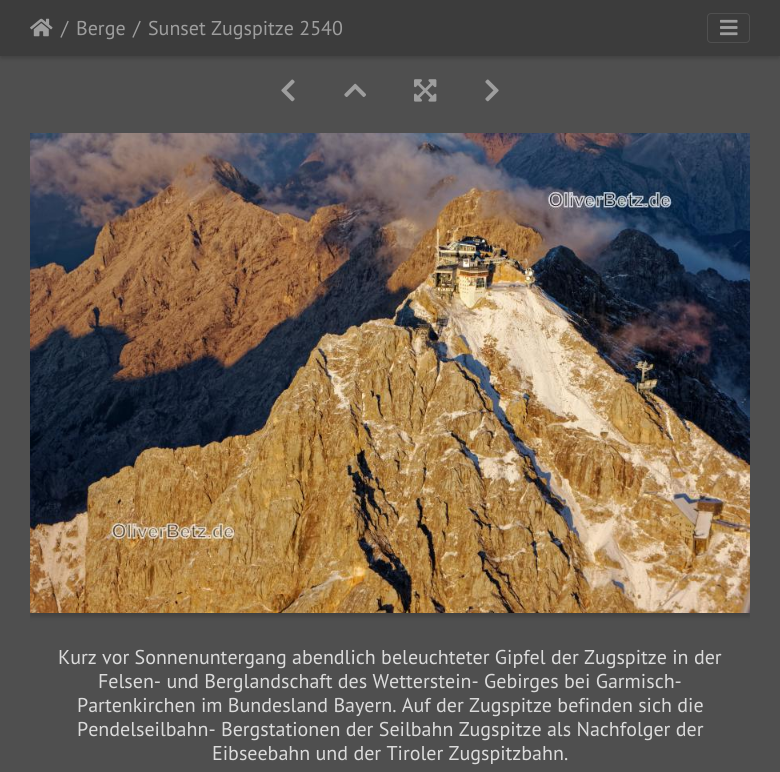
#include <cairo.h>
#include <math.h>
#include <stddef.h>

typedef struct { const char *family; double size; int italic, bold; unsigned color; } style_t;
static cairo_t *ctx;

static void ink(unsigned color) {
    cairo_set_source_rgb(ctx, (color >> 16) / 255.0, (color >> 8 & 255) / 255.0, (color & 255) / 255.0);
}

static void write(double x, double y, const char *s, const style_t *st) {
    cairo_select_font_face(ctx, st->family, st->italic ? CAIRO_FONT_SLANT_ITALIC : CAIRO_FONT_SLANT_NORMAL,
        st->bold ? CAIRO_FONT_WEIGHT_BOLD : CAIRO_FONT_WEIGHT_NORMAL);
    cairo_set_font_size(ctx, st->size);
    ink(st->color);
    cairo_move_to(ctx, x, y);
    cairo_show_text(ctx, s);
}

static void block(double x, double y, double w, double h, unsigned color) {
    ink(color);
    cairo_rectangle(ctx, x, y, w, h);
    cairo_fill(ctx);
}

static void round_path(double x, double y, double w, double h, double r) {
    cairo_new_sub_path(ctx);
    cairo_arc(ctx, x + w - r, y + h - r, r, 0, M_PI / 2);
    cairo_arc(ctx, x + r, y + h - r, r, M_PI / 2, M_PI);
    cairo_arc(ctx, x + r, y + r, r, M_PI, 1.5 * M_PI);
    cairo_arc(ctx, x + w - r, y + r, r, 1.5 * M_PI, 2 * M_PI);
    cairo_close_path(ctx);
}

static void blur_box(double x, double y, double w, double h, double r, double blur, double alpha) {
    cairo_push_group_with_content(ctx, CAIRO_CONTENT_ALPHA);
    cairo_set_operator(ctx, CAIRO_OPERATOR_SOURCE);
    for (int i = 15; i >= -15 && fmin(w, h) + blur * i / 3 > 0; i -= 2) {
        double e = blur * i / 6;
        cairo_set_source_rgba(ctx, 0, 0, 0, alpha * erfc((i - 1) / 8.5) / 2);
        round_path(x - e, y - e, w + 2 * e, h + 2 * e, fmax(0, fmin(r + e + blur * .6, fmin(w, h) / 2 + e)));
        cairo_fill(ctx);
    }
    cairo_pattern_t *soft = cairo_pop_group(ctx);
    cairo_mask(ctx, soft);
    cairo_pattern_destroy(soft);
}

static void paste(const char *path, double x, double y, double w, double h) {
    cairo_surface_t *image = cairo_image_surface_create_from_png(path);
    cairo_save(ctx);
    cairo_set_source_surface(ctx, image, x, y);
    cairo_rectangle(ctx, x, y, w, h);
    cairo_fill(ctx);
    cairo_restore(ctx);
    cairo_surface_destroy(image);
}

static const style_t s1 = {"PT Sans", 20, 0, 0, 0x9e9e9e};
static const style_t s2 = {"PT Sans", 20, 0, 0, 0xdbdbdb};

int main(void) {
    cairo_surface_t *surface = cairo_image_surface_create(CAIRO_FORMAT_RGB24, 780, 772);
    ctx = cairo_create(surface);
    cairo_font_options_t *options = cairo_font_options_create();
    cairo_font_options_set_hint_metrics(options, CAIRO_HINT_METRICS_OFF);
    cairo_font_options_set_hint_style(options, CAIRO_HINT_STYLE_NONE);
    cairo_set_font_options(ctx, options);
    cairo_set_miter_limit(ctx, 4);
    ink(0x4f4f4f);
    cairo_paint(ctx);
    ink(0x000000);
    blur_box(1, 4, 778, 54, 0, 2.5, 0.2);
    block(0, 0, 780, 56, 0x3c3c3c);
    paste("pic1.png", 30, 18, 23, 19);
    write(61, 35, "/", &s1);
    write(76, 35, "Berge", &s1);
    write(133, 35, "/", &s1);
    write(148, 35, "Sunset Zugspitze 2540", &s1);
    round_path(707.5, 13.5, 42, 29, 3.5);
    ink(0x505050);
    cairo_set_line_width(ctx, 1);
    cairo_stroke(ctx);
    paste("pic2.png", 720, 19, 18, 17);
    paste("pic3.png", 281, 79, 14, 23);
    paste("pic4.png", 344, 83, 22, 14);
    paste("pic5.png", 414, 79, 23, 23);
    paste("pic6.png", 485, 79, 14, 23);
    cairo_save(ctx);
    cairo_rectangle(ctx, 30, 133, 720, 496);
    cairo_clip(ctx);
    ink(0x000000);
    blur_box(30, 136, 720, 480, 0, 3, 0.23);
    cairo_restore(ctx);
    paste("pic7.png", 30, 133, 720, 480);
    write(58, 664, "Kurz vor Sonnenuntergang abendlich beleuchteter Gipfel der Zugspitze in der", &s2);
    write(98, 688, "Felsen- und Berglandschaft des Wetterstein- Gebirges bei Garmisch-", &s2);
    write(77, 712, "Partenkirchen im Bundesland Bayern. Auf der Zugspitze befinden sich die", &s2);
    write(77, 736, "Pendelseilbahn- Bergstationen der Seilbahn Zugspitze als Nachfolger der", &s2);
    write(212, 760, "Eibseebahn und der Tiroler Zugspitzbahn.", &s2);
    cairo_surface_write_to_png(surface, "screenshot.png");
    cairo_font_options_destroy(options);
    cairo_destroy(ctx);
    cairo_surface_destroy(surface);
    return 0;
}
